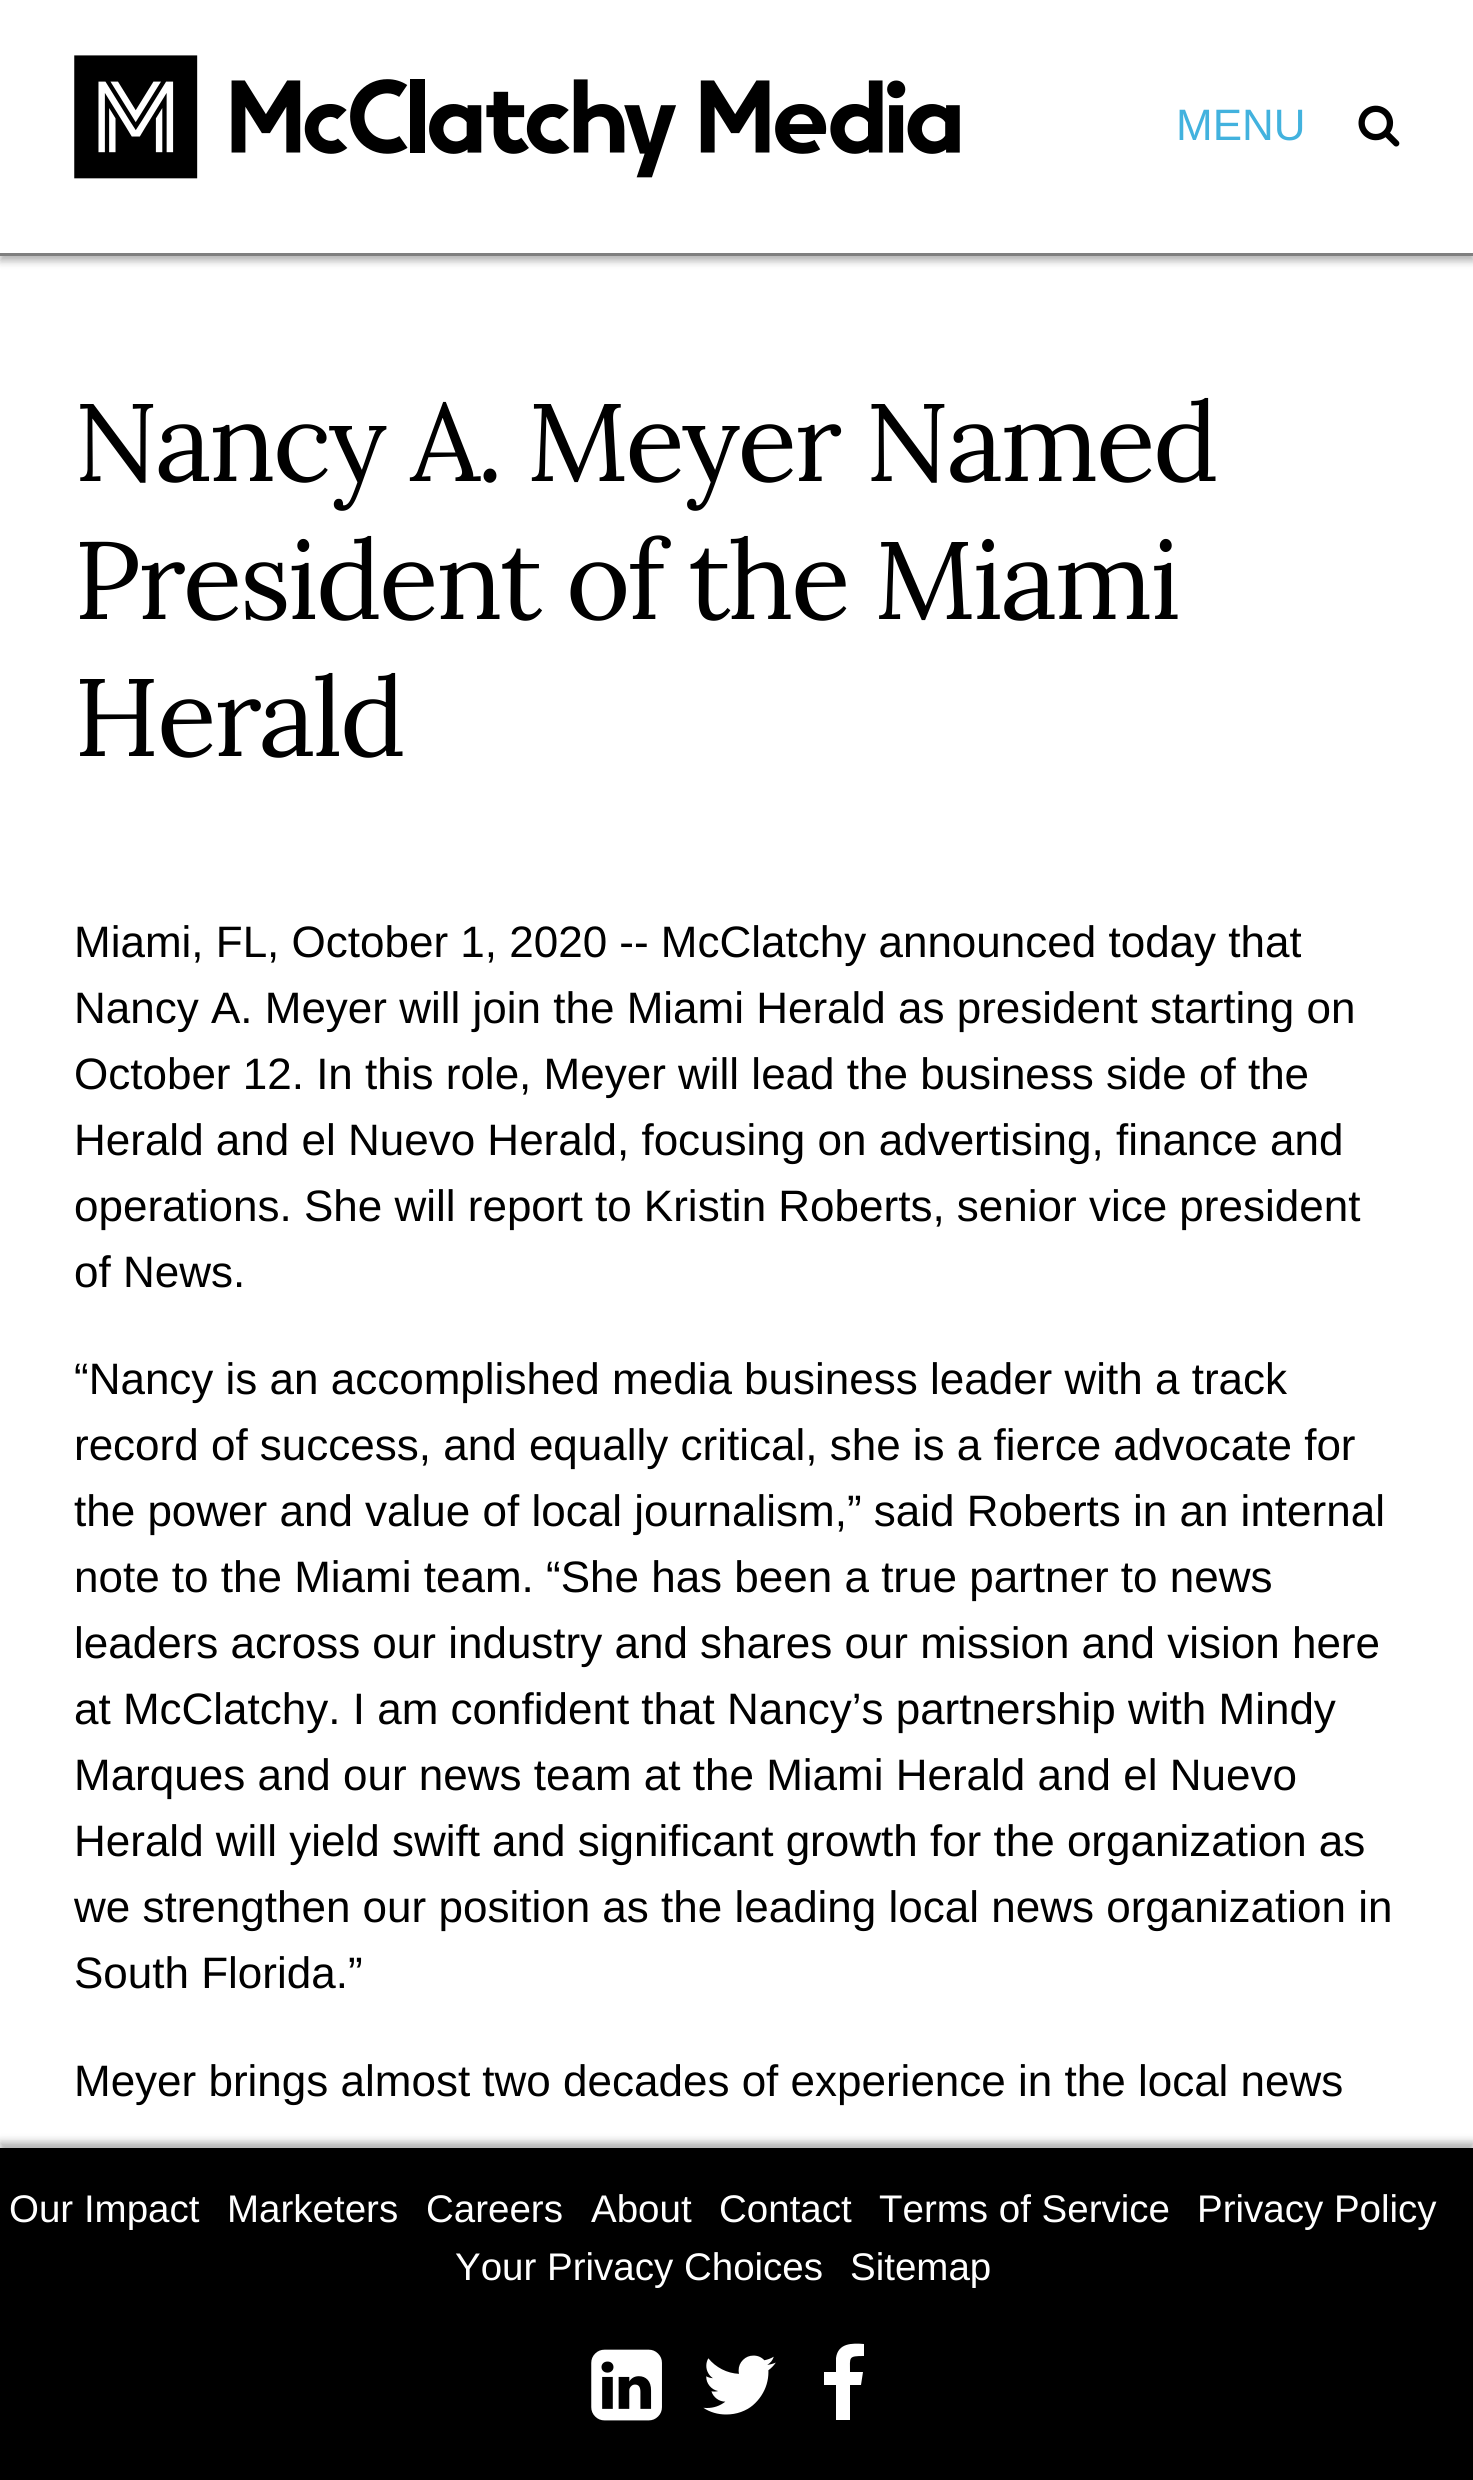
#include <cairo.h>
#include <math.h>
#include <stddef.h>

typedef struct { const char *family; double size; int italic, bold; unsigned color; } style_t;
static cairo_t *ctx;

static void ink(unsigned color) {
    cairo_set_source_rgb(ctx, (color >> 16) / 255.0, (color >> 8 & 255) / 255.0, (color & 255) / 255.0);
}

static void write(double x, double y, const char *s, const style_t *st) {
    cairo_select_font_face(ctx, st->family, st->italic ? CAIRO_FONT_SLANT_ITALIC : CAIRO_FONT_SLANT_NORMAL,
        st->bold ? CAIRO_FONT_WEIGHT_BOLD : CAIRO_FONT_WEIGHT_NORMAL);
    cairo_set_font_size(ctx, st->size);
    ink(st->color);
    cairo_move_to(ctx, x, y);
    cairo_show_text(ctx, s);
}

static void write_spaced(double x, double y, const char *s, double letter, double word) {
    cairo_move_to(ctx, x, y);
    while (*s) {
        char ch[5] = {0};
        int n = 0;
        do ch[n++] = *s++; while ((*s & 0xC0) == 0x80);
        cairo_show_text(ctx, ch);
        cairo_rel_move_to(ctx, letter + word * (*ch == ' '), 0);
    }
}

static void block(double x, double y, double w, double h, unsigned color) {
    ink(color);
    cairo_rectangle(ctx, x, y, w, h);
    cairo_fill(ctx);
}

static void round_path(double x, double y, double w, double h, double r) {
    cairo_new_sub_path(ctx);
    cairo_arc(ctx, x + w - r, y + h - r, r, 0, M_PI / 2);
    cairo_arc(ctx, x + r, y + h - r, r, M_PI / 2, M_PI);
    cairo_arc(ctx, x + r, y + r, r, M_PI, 1.5 * M_PI);
    cairo_arc(ctx, x + w - r, y + r, r, 1.5 * M_PI, 2 * M_PI);
    cairo_close_path(ctx);
}

static void blur_box(double x, double y, double w, double h, double r, double blur, double alpha) {
    cairo_push_group_with_content(ctx, CAIRO_CONTENT_ALPHA);
    cairo_set_operator(ctx, CAIRO_OPERATOR_SOURCE);
    for (int i = 15; i >= -15 && fmin(w, h) + blur * i / 3 > 0; i -= 2) {
        double e = blur * i / 6;
        cairo_set_source_rgba(ctx, 0, 0, 0, alpha * erfc((i - 1) / 8.5) / 2);
        round_path(x - e, y - e, w + 2 * e, h + 2 * e, fmax(0, fmin(r + e + blur * .6, fmin(w, h) / 2 + e)));
        cairo_fill(ctx);
    }
    cairo_pattern_t *soft = cairo_pop_group(ctx);
    cairo_mask(ctx, soft);
    cairo_pattern_destroy(soft);
}

static void paste(const char *path, double x, double y, double w, double h) {
    cairo_surface_t *image = cairo_image_surface_create_from_png(path);
    cairo_save(ctx);
    cairo_set_source_surface(ctx, image, x, y);
    cairo_rectangle(ctx, x, y, w, h);
    cairo_fill(ctx);
    cairo_restore(ctx);
    cairo_surface_destroy(image);
}

static const style_t s1 = {"Liberation Sans", 44, 0, 0, 0x42b2de};
static const style_t s2 = {"Liberation Sans", 44, 0, 0, 0x000000};
static const style_t s3 = {"Liberation Sans", 38.5, 0, 0, 0xffffff};

int main(void) {
    cairo_surface_t *surface = cairo_image_surface_create(CAIRO_FORMAT_RGB24, 1473, 2480);
    ctx = cairo_create(surface);
    cairo_font_options_t *options = cairo_font_options_create();
    cairo_font_options_set_hint_metrics(options, CAIRO_HINT_METRICS_OFF);
    cairo_font_options_set_hint_style(options, CAIRO_HINT_STYLE_NONE);
    cairo_set_font_options(ctx, options);
    cairo_set_miter_limit(ctx, 4);
    ink(0xffffff);
    cairo_paint(ctx);
    ink(0x000000);
    blur_box(0, 6, 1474, 255, 0, 4, 0.3);
    block(0, 0, 1473, 253, 0xffffff);
    block(0, 253, 1473, 3, 0x7f7f7f);
    paste("pic1.png", 74, 55, 886, 124);
    write(1176, 140, "MENU", &s1);
    paste("pic2.png", 1358, 105, 42, 42);
    cairo_select_font_face(ctx, "Lora", CAIRO_FONT_SLANT_NORMAL, CAIRO_FONT_WEIGHT_NORMAL);
    cairo_set_font_size(ctx, 110);
    ink(0x000000);
    write_spaced(74, 481, "Nancy A. Meyer Named", -2.75, 0);
    write_spaced(74, 619, "President of the Miami", -2.75, 0);
    write_spaced(74, 756, "Herald", -2.75, 0);
    write(74, 957, "Miami, FL, October 1, 2020 -- McClatchy announced today that", &s2);
    write(74, 1023, "Nancy A. Meyer will join the Miami Herald as president starting on", &s2);
    write(74, 1089, "October 12. In this role, Meyer will lead the business side of the", &s2);
    write(74, 1155, "Herald and el Nuevo Herald, focusing on advertising, finance and", &s2);
    write(74, 1221, "operations. She will report to Kristin Roberts, senior vice president", &s2);
    write(74, 1287, "of News.", &s2);
    write(74, 1394, "“Nancy is an accomplished media business leader with a track", &s2);
    write(74, 1460, "record of success, and equally critical, she is a fierce advocate for", &s2);
    write(74, 1526, "the power and value of local journalism,” said Roberts in an internal", &s2);
    write(74, 1592, "note to the Miami team. “She has been a true partner to news", &s2);
    write(74, 1658, "leaders across our industry and shares our mission and vision here", &s2);
    write(74, 1724, "at McClatchy. I am confident that Nancy’s partnership with Mindy", &s2);
    write(74, 1790, "Marques and our news team at the Miami Herald and el Nuevo", &s2);
    write(74, 1856, "Herald will yield swift and significant growth for the organization as", &s2);
    write(74, 1922, "we strengthen our position as the leading local news organization in", &s2);
    write(74, 1988, "South Florida.”", &s2);
    write(74, 2096, "Meyer brings almost two decades of experience in the local news", &s2);
    ink(0x000000);
    blur_box(0, 2142, 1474, 333, 0, 4, 0.3);
    block(0, 2148, 1473, 332, 0x000000);
    write(9, 2222, "Our Impact", &s3);
    write(227, 2222, "Marketers", &s3);
    write(426, 2222, "Careers", &s3);
    write(591, 2222, "About", &s3);
    write(719, 2222, "Contact", &s3);
    write(879, 2222, "Terms of Service", &s3);
    write(1197, 2222, "Privacy Policy", &s3);
    write(455, 2280, "Your Privacy Choices", &s3);
    write(850, 2280, "Sitemap", &s3);
    paste("pic3.png", 591, 2349, 71, 72);
    paste("pic4.png", 703, 2355, 73, 60);
    cairo_new_path(ctx);
    cairo_move_to(ctx, 864, 2344);
    cairo_line_to(ctx, 864, 2356);
    cairo_curve_to(ctx, 848, 2356, 850, 2357, 850, 2372);
    cairo_line_to(ctx, 863, 2372);
    cairo_line_to(ctx, 861, 2385);
    cairo_line_to(ctx, 850, 2385);
    cairo_line_to(ctx, 850, 2420);
    cairo_line_to(ctx, 836, 2420);
    cairo_line_to(ctx, 836, 2385);
    cairo_line_to(ctx, 824, 2385);
    cairo_line_to(ctx, 824, 2372);
    cairo_line_to(ctx, 836, 2372);
    cairo_line_to(ctx, 836, 2358);
    cairo_curve_to(ctx, 838, 2343, 852, 2343, 864, 2344);
    cairo_close_path(ctx);
    cairo_fill(ctx);
    cairo_surface_write_to_png(surface, "screenshot.png");
    cairo_font_options_destroy(options);
    cairo_destroy(ctx);
    cairo_surface_destroy(surface);
    return 0;
}
